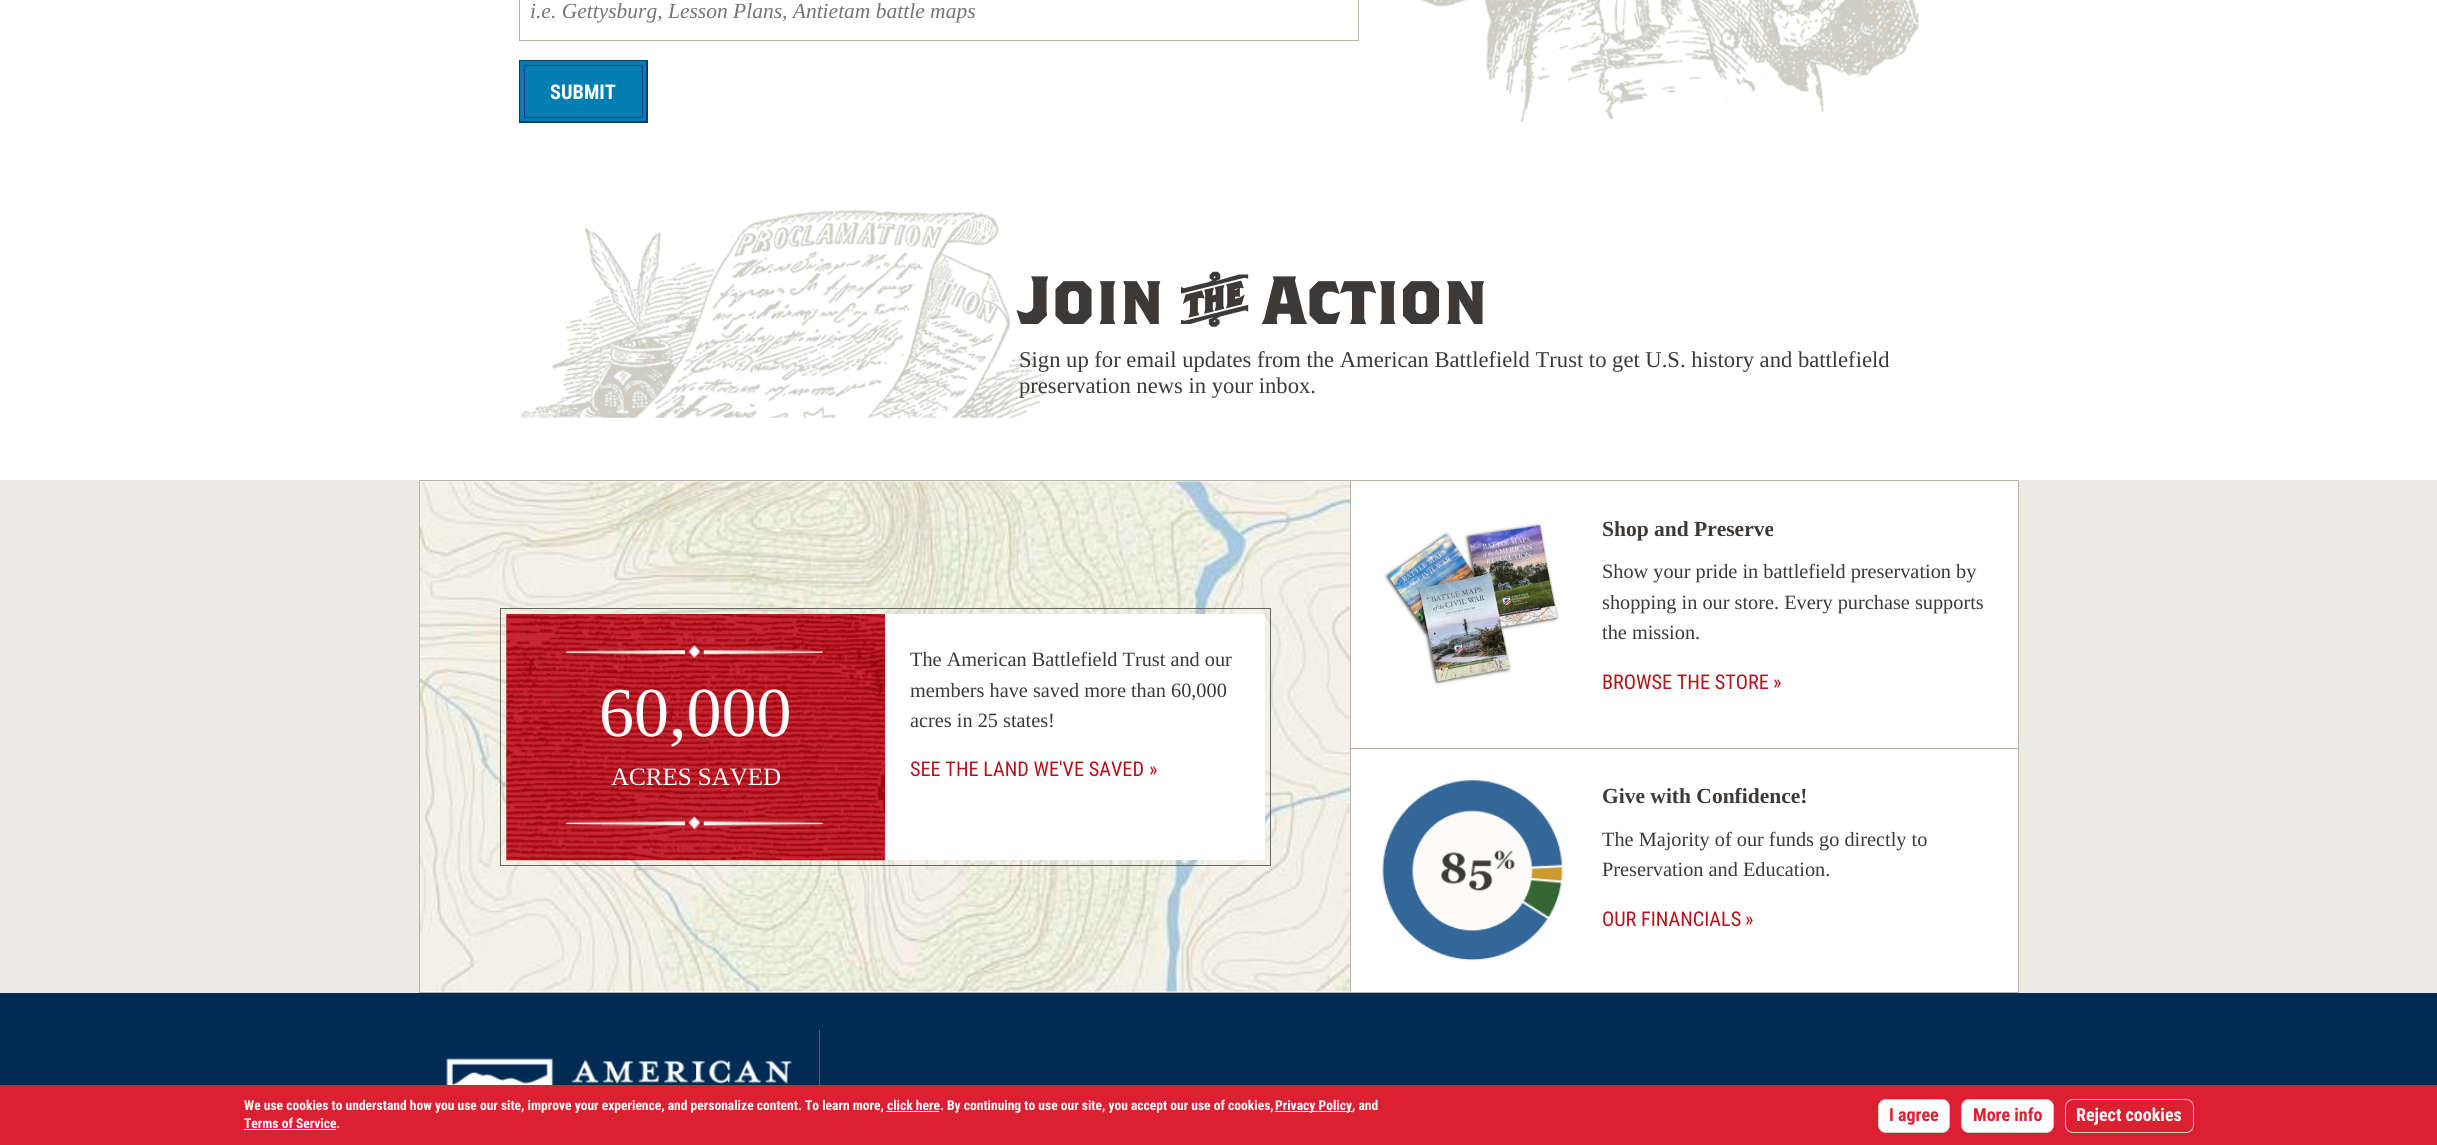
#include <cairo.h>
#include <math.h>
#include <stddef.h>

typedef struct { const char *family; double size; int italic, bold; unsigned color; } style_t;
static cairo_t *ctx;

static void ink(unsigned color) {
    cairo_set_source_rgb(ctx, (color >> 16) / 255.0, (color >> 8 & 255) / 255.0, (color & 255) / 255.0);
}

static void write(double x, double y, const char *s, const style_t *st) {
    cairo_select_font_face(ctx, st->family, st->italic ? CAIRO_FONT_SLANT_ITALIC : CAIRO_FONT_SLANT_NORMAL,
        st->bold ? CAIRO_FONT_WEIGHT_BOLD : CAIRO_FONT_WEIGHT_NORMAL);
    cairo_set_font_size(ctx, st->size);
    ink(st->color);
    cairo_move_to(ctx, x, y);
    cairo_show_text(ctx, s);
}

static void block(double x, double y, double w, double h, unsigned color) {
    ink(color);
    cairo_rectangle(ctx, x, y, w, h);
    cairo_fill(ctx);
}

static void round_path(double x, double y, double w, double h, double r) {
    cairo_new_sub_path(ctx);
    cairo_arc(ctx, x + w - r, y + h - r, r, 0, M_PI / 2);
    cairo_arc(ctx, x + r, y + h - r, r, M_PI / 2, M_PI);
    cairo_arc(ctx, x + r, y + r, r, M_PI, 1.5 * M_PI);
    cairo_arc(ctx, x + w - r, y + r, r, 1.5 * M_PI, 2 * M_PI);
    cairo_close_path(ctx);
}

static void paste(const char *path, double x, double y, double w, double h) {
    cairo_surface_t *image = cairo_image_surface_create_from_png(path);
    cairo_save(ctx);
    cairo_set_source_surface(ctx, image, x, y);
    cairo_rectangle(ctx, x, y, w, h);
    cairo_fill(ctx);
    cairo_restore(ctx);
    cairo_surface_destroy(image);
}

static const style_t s1 = {"Liberation Serif", 21.5, 1, 0, 0x757575};
static const style_t s2 = {"Roboto Condensed", 20.3, 0, 1, 0xffffff};
static const style_t s3 = {"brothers", 68, 0, 0, 0x3c3936};
static const style_t s4 = {"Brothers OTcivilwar", 68, 0, 1, 0x3c3936};
static const style_t s5 = {"Liberation Serif", 22.6, 0, 0, 0x3c3936};
static const style_t s6 = {"Liberation Serif", 70, 0, 0, 0xffffff};
static const style_t s7 = {"Liberation Serif", 25, 0, 0, 0xffffff};
static const style_t s8 = {"Liberation Serif", 20.3, 0, 0, 0x3c3936};
static const style_t s9 = {"Roboto Condensed", 20.3, 0, 0, 0xb5121b};
static const style_t s10 = {"Liberation Serif", 21.5, 0, 1, 0x3c3936};
static const style_t s11 = {"Roboto Condensed", 13.55, 0, 1, 0xffffff};
static const style_t s12 = {"Roboto Condensed", 18, 0, 1, 0xdb2032};
static const style_t s13 = {"Roboto Condensed", 18, 0, 1, 0xffffff};

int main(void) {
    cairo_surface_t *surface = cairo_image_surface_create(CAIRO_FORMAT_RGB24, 2437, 1145);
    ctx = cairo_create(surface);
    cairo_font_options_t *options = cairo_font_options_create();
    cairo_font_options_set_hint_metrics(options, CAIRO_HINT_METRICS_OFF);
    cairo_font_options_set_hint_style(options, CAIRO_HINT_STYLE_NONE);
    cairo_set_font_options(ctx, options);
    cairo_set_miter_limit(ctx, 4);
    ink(0xffffff);
    cairo_paint(ctx);
    paste("pic1.png", 1420, 0, 499, 123);
    cairo_rectangle(ctx, 519.5, -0.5, 839, 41);
    ink(0xb6b2a4);
    cairo_set_line_width(ctx, 1);
    cairo_stroke(ctx);
    write(530, 18, "i.e. Gettysburg, Lesson Plans, Antietam battle maps", &s1);
    cairo_rectangle(ctx, 522, 63, 123, 57);
    ink(0x003e7d);
    cairo_set_line_width(ctx, 6);
    cairo_stroke(ctx);
    cairo_rectangle(ctx, 522.5, 63.5, 121, 55);
    ink(0x007eb3);
    cairo_set_line_width(ctx, 5);
    cairo_stroke(ctx);
    cairo_rectangle(ctx, 524.5, 65.5, 118, 52);
    ink(0x003e7d);
    cairo_set_line_width(ctx, 1);
    cairo_stroke(ctx);
    block(525, 66, 116, 50, 0x007eb3);
    write(550, 99, "SUBMIT", &s2);
    paste("pic2.png", 520, 210, 527, 208);
    write(1019, 324, "Join", &s3);
    write(1181, 324, "t", &s4);
    write(1263, 324, "Action", &s3);
    write(1019, 367, "Sign up for email updates from the American Battlefield Trust to get U.S. history and battlefield", &s5);
    write(1019, 393, "preservation news in your inbox.", &s5);
    block(0, 480, 2437, 513, 0xedeae3);
    ink(0xffffff);
    cairo_rectangle(ctx, 419.5, 480.5, 1599, 512);
    cairo_fill_preserve(ctx);
    ink(0xb6b2a4);
    cairo_stroke(ctx);
    paste("pic3.png", 420, 481, 930, 511);
    block(1350, 481, 1, 510, 0xb6b2a4);
    cairo_rectangle(ctx, 500.5, 608.5, 770, 257);
    ink(0x69665e);
    cairo_stroke(ctx);
    paste("pic4.png", 506, 614, 379, 247);
    paste("pic5.png", 566, 645, 257, 13);
    write(599, 736, "60,000", &s6);
    write(611, 785, "ACRES SAVED", &s7);
    paste("pic6.png", 566, 816, 257, 13);
    block(885, 614, 380, 246, 0xffffff);
    write(910, 666, "The American Battlefield Trust and our", &s8);
    write(910, 697, "members have saved more than 60,000", &s8);
    write(910, 727, "acres in 25 states!", &s8);
    write(910, 776, "SEE THE LAND WE'VE SAVED", &s9);
    write(1149, 776, "»", &s9);
    block(1351, 748, 667, 1, 0xb6b2a4);
    paste("pic7.png", 1384, 523, 175, 162);
    write(1602, 536, "Shop and Preserve", &s10);
    write(1602, 578, "Show your pride in battlefield preservation by", &s8);
    write(1602, 609, "shopping in our store. Every purchase supports", &s8);
    write(1602, 639, "the mission.", &s8);
    write(1602, 689, "BROWSE THE STORE", &s9);
    write(1773, 689, "»", &s9);
    paste("pic8.png", 1382, 780, 181, 181);
    write(1602, 803, "Give with Confidence!", &s10);
    write(1602, 846, "The Majority of our funds go directly to", &s8);
    write(1602, 876, "Preservation and Education.", &s8);
    write(1602, 926, "OUR FINANCIALS", &s9);
    write(1745, 926, "»", &s9);
    block(0, 993, 2437, 92, 0x002b54);
    paste("pic9.png", 446, 1058, 346, 27);
    block(819, 1030, 1, 55, 0x4a5d79);
    block(0, 1085, 2437, 60, 0xdb2032);
    write(244, 1110, "We use cookies to understand how you use our site, improve your experience, and personalize content. To learn more, click here. By continuing to use our site, you accept our use of cookies,", &s11);
    block(886, 1111, 53, 1, 0xffffff);
    block(1275, 1111, 78, 1, 0xffffff);
    write(1275, 1110, "Privacy Policy, and", &s11);
    write(244, 1128, "Terms of Service.", &s11);
    block(244, 1129, 92, 1, 0xffffff);
    round_path(1878.5, 1099.5, 71, 33, 7.5);
    cairo_fill_preserve(ctx);
    ink(0xcdcccc);
    cairo_stroke(ctx);
    write(1889, 1121, "I agree", &s12);
    ink(0xffffff);
    round_path(1961.5, 1099.5, 92, 33, 7.5);
    cairo_fill_preserve(ctx);
    ink(0xcdcccc);
    cairo_stroke(ctx);
    write(1973, 1121, "More info", &s12);
    round_path(2065.5, 1099.5, 128, 33, 7.5);
    ink(0xcdcccc);
    cairo_stroke(ctx);
    write(2076, 1121, "Reject cookies", &s13);
    cairo_surface_write_to_png(surface, "screenshot.png");
    cairo_font_options_destroy(options);
    cairo_destroy(ctx);
    cairo_surface_destroy(surface);
    return 0;
}
